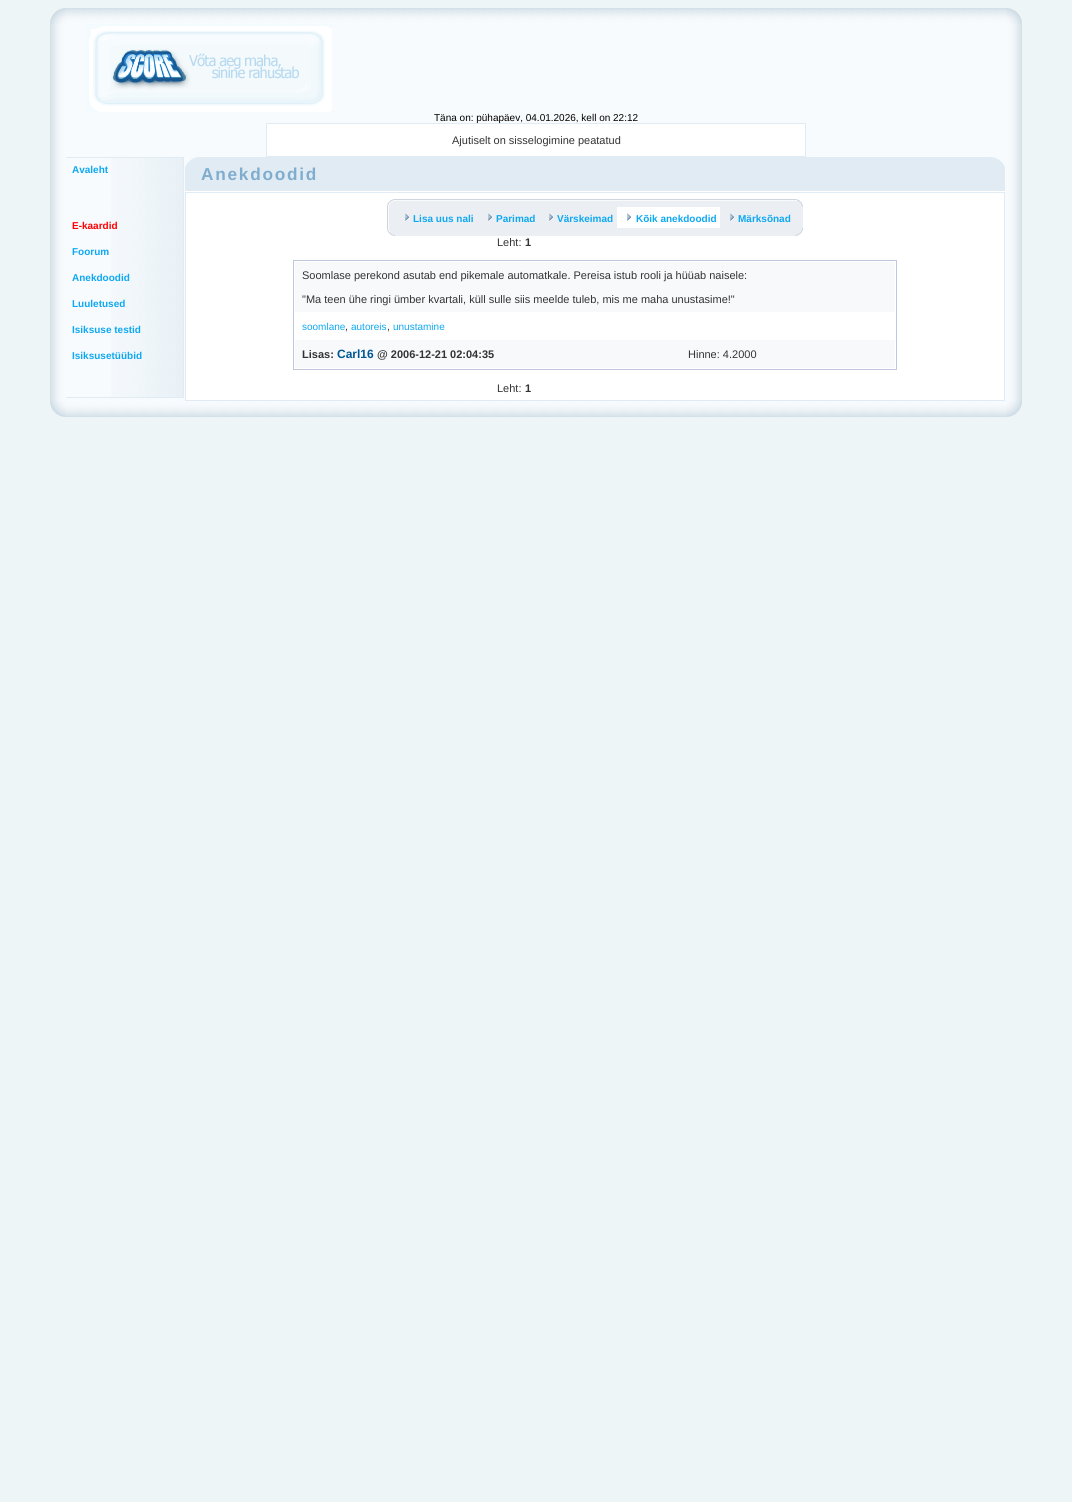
#include <cairo.h>
#include <math.h>
#include <stddef.h>

typedef struct { const char *family; double size; int italic, bold; unsigned color; } style_t;
static cairo_t *ctx;

static void ink(unsigned color) {
    cairo_set_source_rgb(ctx, (color >> 16) / 255.0, (color >> 8 & 255) / 255.0, (color & 255) / 255.0);
}

static void write(double x, double y, const char *s, const style_t *st) {
    cairo_select_font_face(ctx, st->family, st->italic ? CAIRO_FONT_SLANT_ITALIC : CAIRO_FONT_SLANT_NORMAL,
        st->bold ? CAIRO_FONT_WEIGHT_BOLD : CAIRO_FONT_WEIGHT_NORMAL);
    cairo_set_font_size(ctx, st->size);
    ink(st->color);
    cairo_move_to(ctx, x, y);
    cairo_show_text(ctx, s);
}

static void write_spaced(double x, double y, const char *s, double letter, double word) {
    cairo_move_to(ctx, x, y);
    while (*s) {
        char ch[5] = {0};
        int n = 0;
        do ch[n++] = *s++; while ((*s & 0xC0) == 0x80);
        cairo_show_text(ctx, ch);
        cairo_rel_move_to(ctx, letter + word * (*ch == ' '), 0);
    }
}

static void block(double x, double y, double w, double h, unsigned color) {
    ink(color);
    cairo_rectangle(ctx, x, y, w, h);
    cairo_fill(ctx);
}

static void paste(const char *path, double x, double y, double w, double h) {
    cairo_surface_t *image = cairo_image_surface_create_from_png(path);
    cairo_save(ctx);
    cairo_set_source_surface(ctx, image, x, y);
    cairo_rectangle(ctx, x, y, w, h);
    cairo_fill(ctx);
    cairo_restore(ctx);
    cairo_surface_destroy(image);
}

static const style_t s1 = {"Liberation Sans", 10, 0, 0, 0x000000};
static const style_t s2 = {"Liberation Sans", 11, 0, 0, 0x333333};
static const style_t s3 = {"Liberation Sans", 10, 0, 1, 0x0da8f2};
static const style_t s4 = {"Liberation Sans", 10, 0, 1, 0xff0000};
static const style_t s5 = {"Liberation Sans", 11, 0, 1, 0x333333};
static const style_t s6 = {"Liberation Sans", 10, 0, 0, 0x0da8f2};
static const style_t s7 = {"Liberation Sans", 12, 0, 1, 0x005893};

int main(void) {
    cairo_surface_t *surface = cairo_image_surface_create(CAIRO_FORMAT_RGB24, 1072, 1502);
    ctx = cairo_create(surface);
    cairo_font_options_t *options = cairo_font_options_create();
    cairo_font_options_set_hint_metrics(options, CAIRO_HINT_METRICS_OFF);
    cairo_font_options_set_hint_style(options, CAIRO_HINT_STYLE_NONE);
    cairo_set_font_options(ctx, options);
    cairo_set_miter_limit(ctx, 4);
    ink(0xeef5f7);
    cairo_paint(ctx);
    paste("pic1.png", 50, 8, 16, 16);
    paste("pic2.png", 66, 8, 940, 16);
    paste("pic3.png", 1006, 8, 16, 16);
    paste("pic4.png", 50, 24, 16, 133);
    block(66, 24, 940, 377, 0xf8fbfd);
    paste("pic5.png", 86, 24, 246, 88);
    paste("pic6.png", 91, 29, 234, 78);
    ink(0xffffff);
    cairo_rectangle(ctx, 266.5, 123.5, 539, 33);
    cairo_fill_preserve(ctx);
    ink(0xe0ebf3);
    cairo_set_line_width(ctx, 1);
    cairo_stroke(ctx);
    write(434, 121, "Täna on: pühapäev, 04.01.2026, kell on 22:12", &s1);
    write(452, 144, "Ajutiselt on sisselogimine peatatud", &s2);
    paste("pic7.png", 1006, 24, 16, 133);
    paste("pic8.png", 50, 157, 16, 244);
    paste("pic9.png", 111, 158, 72, 239);
    block(66, 157, 118, 1, 0xe0ebf3);
    block(183, 157, 1, 241, 0xe0ebf3);
    block(66, 397, 118, 1, 0xe0ebf3);
    write(72, 173, "Avaleht", &s3);
    write(72, 229, "E-kaardid", &s4);
    write(72, 255, "Foorum", &s3);
    write(72, 281, "Anekdoodid", &s3);
    write(72, 307, "Luuletused", &s3);
    write(72, 333, "Isiksuse testid", &s3);
    write(72, 359, "Isiksusetüübid", &s3);
    paste("pic10.png", 185, 157, 16, 16);
    block(201, 157, 788, 34, 0xe0ebf3);
    cairo_set_font_size(ctx, 17.25);
    ink(0x80adce);
    write_spaced(201, 180, "Anekdoodid", 1.75, 0);
    paste("pic11.png", 989, 157, 16, 16);
    block(185, 173, 16, 18, 0xe0ebf3);
    block(989, 173, 16, 18, 0xe0ebf3);
    block(185, 191, 820, 1, 0xffffff);
    cairo_rectangle(ctx, 185.5, 192.5, 819, 208);
    cairo_fill_preserve(ctx);
    ink(0xe0ebf3);
    cairo_stroke(ctx);
    paste("pic12.png", 387, 199, 8, 8);
    paste("pic13.png", 395, 199, 400, 8);
    paste("pic14.png", 795, 199, 8, 8);
    paste("pic15.png", 387, 207, 8, 21);
    block(395, 207, 408, 21, 0xebeef2);
    paste("pic16.png", 405, 213, 4, 8);
    write(413, 222, "Lisa uus nali", &s3);
    paste("pic16.png", 488, 213, 4, 8);
    write(496, 222, "Parimad", &s3);
    paste("pic16.png", 549, 213, 4, 8);
    write(557, 222, "Värskeimad", &s3);
    block(617, 207, 103, 21, 0xffffff);
    paste("pic17.png", 627, 213, 4, 8);
    write(636, 222, "Kõik anekdoodid", &s3);
    paste("pic16.png", 730, 213, 4, 8);
    write(738, 222, "Märksõnad", &s3);
    paste("pic18.png", 387, 228, 8, 8);
    block(395, 228, 400, 8, 0xebeef2);
    paste("pic19.png", 795, 228, 8, 8);
    write(497, 246, "Leht:", &s2);
    write(525, 246, "1", &s5);
    cairo_rectangle(ctx, 293.5, 260.5, 603, 109);
    ink(0xbfc8df);
    cairo_stroke(ctx);
    block(295, 262, 600, 50, 0xf7f9fb);
    write(302, 279, "Soomlase perekond asutab end pikemale automatkale. Pereisa istub rooli ja hüüab naisele:", &s2);
    write(302, 303, "\"Ma teen ühe ringi ümber kvartali, küll sulle siis meelde tuleb, mis me maha unustasime!\"", &s2);
    write(302, 330, "soomlane", &s6);
    write(345, 330, ",", &s2);
    write(351, 330, "autoreis", &s6);
    write(387, 330, ",", &s2);
    write(393, 330, "unustamine", &s6);
    block(295, 340, 600, 28, 0xf7f9fb);
    write(302, 358, "Lisas:", &s5);
    write(337, 358, "Carl16", &s7);
    write(377, 358, "@ 2006-12-21 02:04:35", &s5);
    write(688, 358, "Hinne: 4.2000", &s2);
    write(497, 392, "Leht:", &s2);
    write(525, 392, "1", &s5);
    paste("pic20.png", 1006, 157, 16, 244);
    paste("pic21.png", 50, 401, 16, 16);
    paste("pic22.png", 66, 401, 940, 16);
    paste("pic23.png", 1006, 401, 16, 16);
    cairo_surface_write_to_png(surface, "screenshot.png");
    cairo_font_options_destroy(options);
    cairo_destroy(ctx);
    cairo_surface_destroy(surface);
    return 0;
}
